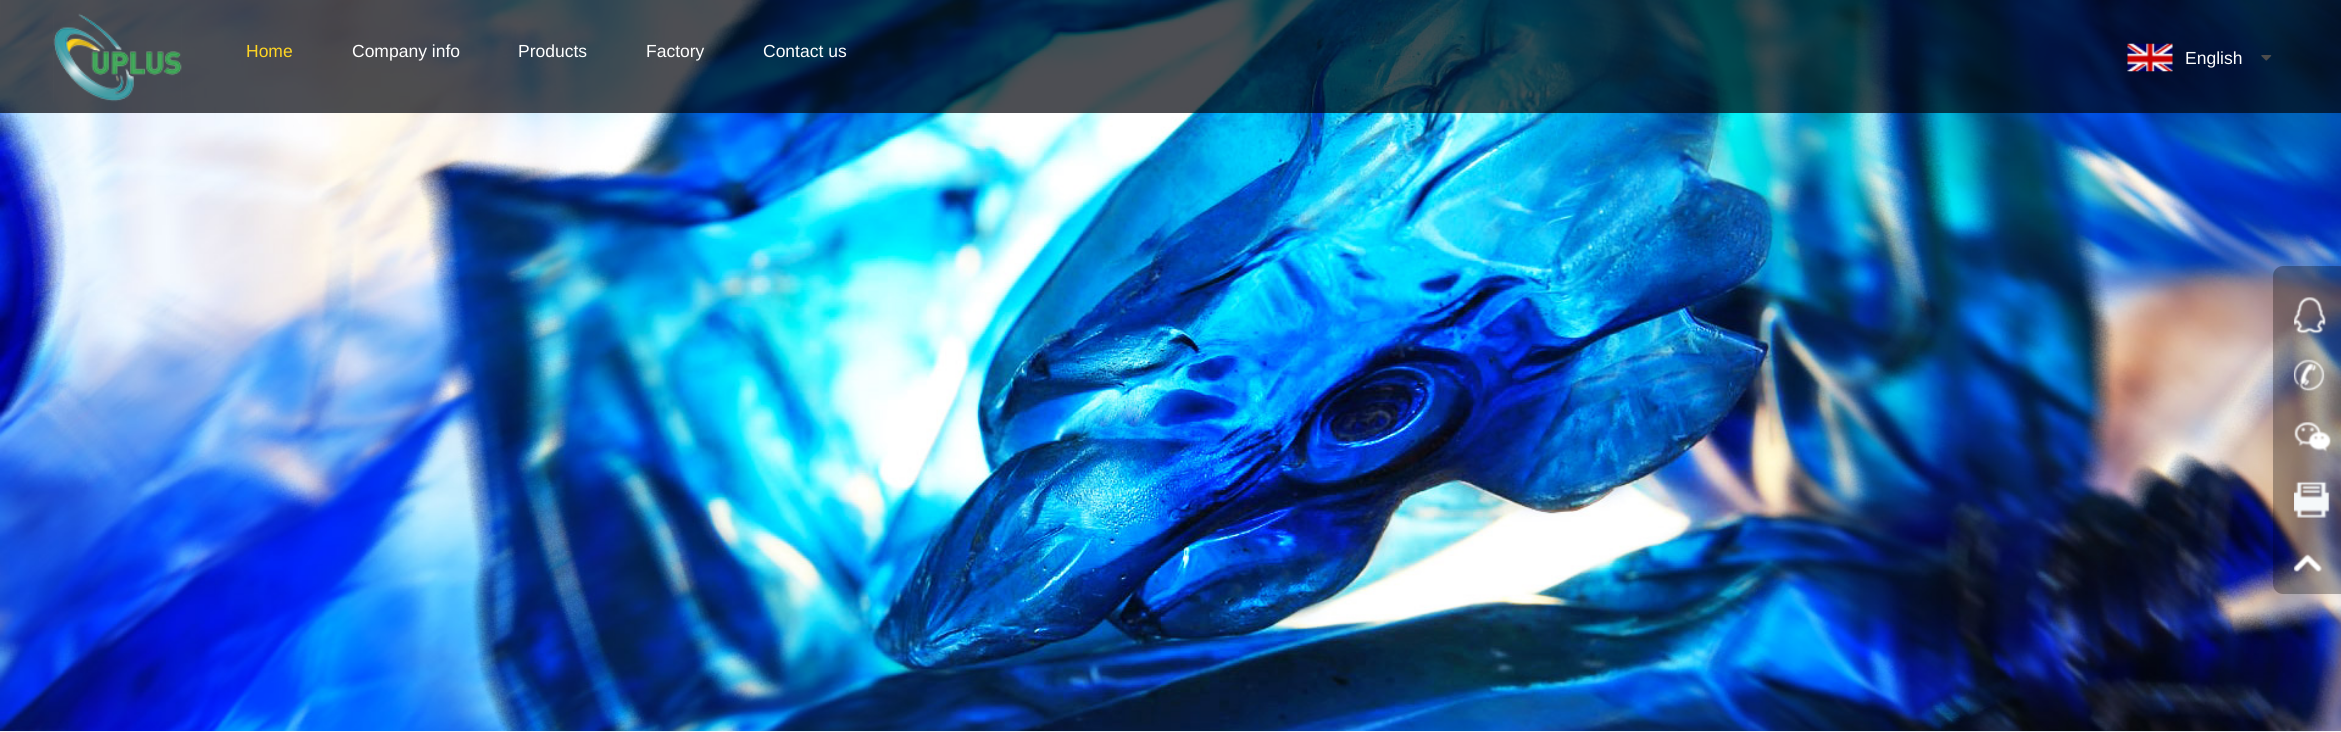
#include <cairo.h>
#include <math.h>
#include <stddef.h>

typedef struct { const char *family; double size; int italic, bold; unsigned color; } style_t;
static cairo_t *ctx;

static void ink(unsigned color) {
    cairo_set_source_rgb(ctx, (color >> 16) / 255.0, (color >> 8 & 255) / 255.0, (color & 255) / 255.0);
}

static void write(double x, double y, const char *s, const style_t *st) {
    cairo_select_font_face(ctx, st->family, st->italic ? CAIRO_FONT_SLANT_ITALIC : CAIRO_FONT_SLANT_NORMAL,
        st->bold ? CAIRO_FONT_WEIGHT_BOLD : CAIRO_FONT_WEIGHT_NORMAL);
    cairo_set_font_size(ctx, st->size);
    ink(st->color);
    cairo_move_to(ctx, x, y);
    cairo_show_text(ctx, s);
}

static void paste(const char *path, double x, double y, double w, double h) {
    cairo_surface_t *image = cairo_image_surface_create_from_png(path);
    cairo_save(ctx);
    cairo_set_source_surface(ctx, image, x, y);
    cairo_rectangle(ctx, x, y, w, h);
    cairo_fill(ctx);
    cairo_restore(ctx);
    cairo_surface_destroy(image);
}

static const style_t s1 = {"Liberation Sans", 17.5, 0, 0, 0xffd523};
static const style_t s2 = {"Liberation Sans", 17.5, 0, 0, 0xffffff};

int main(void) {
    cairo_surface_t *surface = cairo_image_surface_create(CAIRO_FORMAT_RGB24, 2341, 732);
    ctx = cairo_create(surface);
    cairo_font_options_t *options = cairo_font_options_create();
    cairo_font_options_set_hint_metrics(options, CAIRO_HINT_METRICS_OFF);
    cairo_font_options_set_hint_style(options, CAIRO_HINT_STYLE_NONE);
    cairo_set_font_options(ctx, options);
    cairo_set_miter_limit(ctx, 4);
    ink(0xffffff);
    cairo_paint(ctx);
    paste("pic1.png", 0, 0, 2341, 732);
    cairo_set_source_rgba(ctx, 0.008, 0.016, 0.043, 0.7);
    cairo_rectangle(ctx, 0, 0, 2341, 113);
    cairo_fill(ctx);
    paste("pic2.png", 53, 13, 129, 89);
    write(246, 57, "Home", &s1);
    write(352, 57, "Company info", &s2);
    write(518, 57, "Products", &s2);
    write(646, 57, "Factory", &s2);
    write(763, 57, "Contact us", &s2);
    paste("pic3.png", 2127, 43, 46, 29);
    write(2185, 64, "English", &s2);
    paste("pic4.png", 2261, 55, 11, 6);
    cairo_set_source_rgba(ctx, 0, 0, 0, 0.3);
    cairo_new_path(ctx);
    cairo_move_to(ctx, 2283, 266);
    cairo_line_to(ctx, 2341, 266);
    cairo_line_to(ctx, 2341, 594);
    cairo_line_to(ctx, 2283, 594);
    cairo_curve_to(ctx, 2277.5, 594, 2273, 589.5, 2273, 584);
    cairo_line_to(ctx, 2273, 276);
    cairo_curve_to(ctx, 2273, 270.5, 2277.5, 266, 2283, 266);
    cairo_close_path(ctx);
    cairo_fill(ctx);
    paste("pic5.png", 2294, 297, 32, 37);
    paste("pic6.png", 2294, 359, 47, 32);
    paste("pic7.png", 2294, 422, 37, 30);
    paste("pic8.png", 2294, 481, 47, 37);
    paste("pic9.png", 2294, 554, 28, 18);
    cairo_surface_write_to_png(surface, "screenshot.png");
    cairo_font_options_destroy(options);
    cairo_destroy(ctx);
    cairo_surface_destroy(surface);
    return 0;
}
